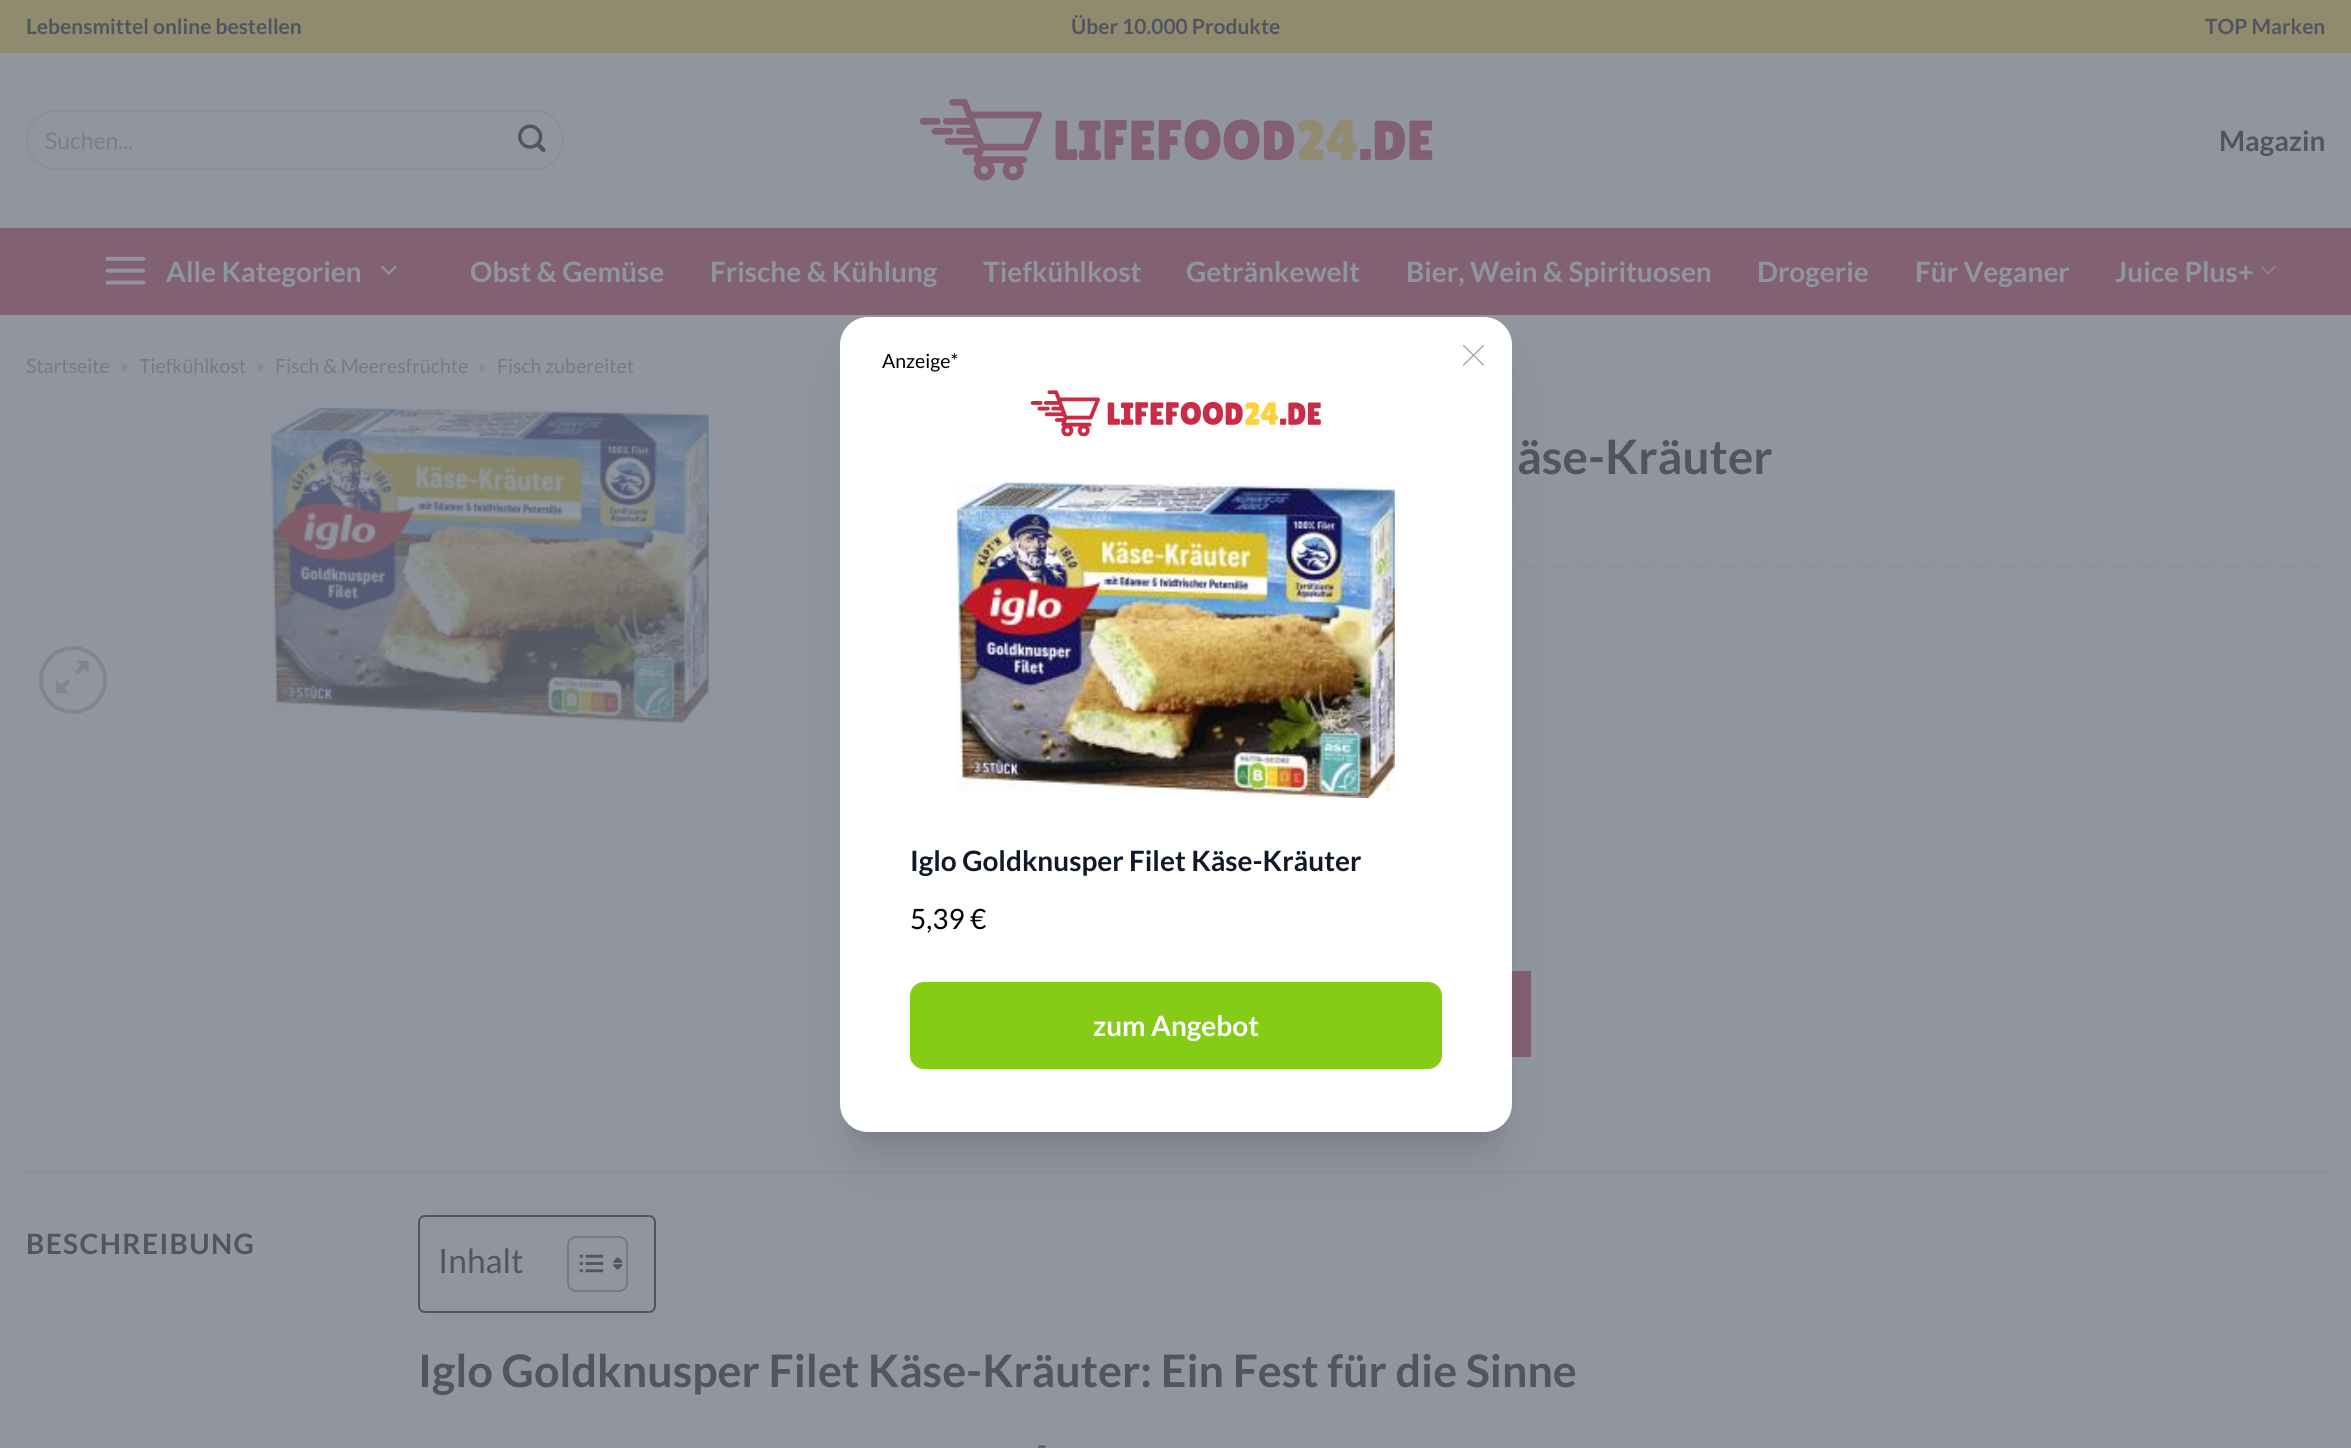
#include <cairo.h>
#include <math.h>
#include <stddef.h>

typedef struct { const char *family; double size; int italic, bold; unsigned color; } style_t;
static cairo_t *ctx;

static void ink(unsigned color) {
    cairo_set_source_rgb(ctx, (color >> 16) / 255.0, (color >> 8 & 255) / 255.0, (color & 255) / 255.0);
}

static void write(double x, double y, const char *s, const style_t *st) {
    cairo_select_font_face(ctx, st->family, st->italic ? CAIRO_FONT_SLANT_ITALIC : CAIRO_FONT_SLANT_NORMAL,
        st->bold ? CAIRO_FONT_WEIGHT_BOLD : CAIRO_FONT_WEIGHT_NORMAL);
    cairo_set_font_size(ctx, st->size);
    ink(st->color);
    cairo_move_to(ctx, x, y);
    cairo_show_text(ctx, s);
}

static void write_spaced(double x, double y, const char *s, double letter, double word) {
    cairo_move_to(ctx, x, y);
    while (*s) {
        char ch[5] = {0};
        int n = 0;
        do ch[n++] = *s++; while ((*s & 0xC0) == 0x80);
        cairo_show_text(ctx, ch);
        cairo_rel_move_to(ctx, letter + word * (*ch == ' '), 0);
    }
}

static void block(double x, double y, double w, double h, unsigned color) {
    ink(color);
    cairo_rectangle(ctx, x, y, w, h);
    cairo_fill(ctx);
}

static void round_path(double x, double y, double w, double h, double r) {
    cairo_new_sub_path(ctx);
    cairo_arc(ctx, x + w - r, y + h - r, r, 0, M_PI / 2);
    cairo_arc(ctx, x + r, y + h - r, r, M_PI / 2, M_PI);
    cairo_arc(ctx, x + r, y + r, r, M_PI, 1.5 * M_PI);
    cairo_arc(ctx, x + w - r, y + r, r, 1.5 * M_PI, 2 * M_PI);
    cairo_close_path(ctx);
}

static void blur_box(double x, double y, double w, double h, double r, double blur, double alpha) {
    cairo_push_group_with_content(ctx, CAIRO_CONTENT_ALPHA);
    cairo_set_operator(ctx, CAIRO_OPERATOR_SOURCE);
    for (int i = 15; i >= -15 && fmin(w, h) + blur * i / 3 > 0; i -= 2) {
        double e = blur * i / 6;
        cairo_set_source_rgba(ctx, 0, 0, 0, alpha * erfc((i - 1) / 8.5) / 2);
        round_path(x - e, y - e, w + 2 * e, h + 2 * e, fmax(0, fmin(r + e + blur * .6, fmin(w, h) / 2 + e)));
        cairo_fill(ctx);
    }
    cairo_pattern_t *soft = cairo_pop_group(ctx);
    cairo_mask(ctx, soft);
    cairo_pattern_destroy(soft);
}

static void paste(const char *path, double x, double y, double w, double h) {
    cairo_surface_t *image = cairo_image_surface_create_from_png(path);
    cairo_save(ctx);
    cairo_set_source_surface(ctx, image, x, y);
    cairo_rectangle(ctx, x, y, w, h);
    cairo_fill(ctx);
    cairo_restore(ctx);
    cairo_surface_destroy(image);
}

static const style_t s1 = {"Lato", 21, 0, 1, 0x505660};
static const style_t s2 = {"Lato", 23, 0, 0, 0x777e8c};
static const style_t s3 = {"Lato", 28, 0, 1, 0x505660};
static const style_t s4 = {"Lato", 28, 0, 1, 0x9095a0};
static const style_t s5 = {"Lato", 19.5, 0, 0, 0x757b85};
static const style_t s6 = {"Lato", 19.5, 0, 0, 0x7d828d};
static const style_t s7 = {"Lato", 47.5, 0, 1, 0x505660};
static const style_t s8 = {"Lato", 33.5, 0, 0, 0x505660};
static const style_t s9 = {"Lato", 44.8, 0, 1, 0x505660};
static const style_t s10 = {"Lato", 28, 0, 0, 0x505660};
static const style_t s11 = {"Lato", 19.5, 0, 0, 0x000000};
static const style_t s12 = {"Lato", 28, 0, 1, 0x111827};
static const style_t s13 = {"Lato", 28, 0, 0, 0x000000};
static const style_t s14 = {"Lato", 28, 0, 1, 0xffffff};

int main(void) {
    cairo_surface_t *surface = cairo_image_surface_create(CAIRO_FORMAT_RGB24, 2351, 1448);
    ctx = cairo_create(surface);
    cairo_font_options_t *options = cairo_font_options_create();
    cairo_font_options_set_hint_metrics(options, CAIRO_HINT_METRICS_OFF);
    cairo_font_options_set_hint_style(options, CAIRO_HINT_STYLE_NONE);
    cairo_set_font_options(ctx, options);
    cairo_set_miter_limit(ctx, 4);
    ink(0x9095a0);
    cairo_paint(ctx);
    block(0, 0, 2351, 53, 0x908a6f);
    write(26, 34, "Lebensmittel online bestellen", &s1);
    write(1071, 34, "Über 10.000 Produkte", &s1);
    write(2205, 34, "TOP Marken", &s1);
    round_path(27, 111, 536, 58, 29);
    cairo_set_source_rgba(ctx, 0.314, 0.337, 0.376, 0.09);
    cairo_stroke(ctx);
    write(45, 149, "Suchen...", &s2);
    paste("pic1.png", 518, 124, 28, 29);
    paste("pic2.png", 919, 98, 514, 83);
    write(2219, 151, "Magazin", &s3);
    block(0, 228, 2351, 87, 0x826172);
    paste("pic3.png", 105, 256, 41, 29);
    write(166, 282, "Alle Kategorien", &s4);
    paste("pic4.png", 381, 265, 16, 10);
    write(470, 282, "Obst & Gemüse", &s4);
    write(710, 282, "Frische & Kühlung", &s4);
    write(983, 282, "Tiefkühlkost", &s4);
    write(1186, 282, "Getränkewelt", &s4);
    write(1406, 282, "Bier, Wein & Spirituosen", &s4);
    write(1757, 282, "Drogerie", &s4);
    write(1915, 282, "Für Veganer", &s4);
    write(2115, 282, "Juice Plus+", &s4);
    paste("pic5.png", 2260, 265, 16, 10);
    write(26, 373, "Startseite", &s5);
    write(120, 373, "»", &s6);
    write(139, 373, "Tiefkühlkost", &s5);
    write(256, 373, "»", &s6);
    write(275, 373, "Fisch & Meeresfrüchte", &s5);
    write(478, 373, "»", &s6);
    write(497, 373, "Fisch zubereitet", &s5);
    cairo_new_path(ctx);
    cairo_arc(ctx, 73, 680, 32, 0, 2 * M_PI);
    ink(0x808690);
    cairo_set_line_width(ctx, 4);
    cairo_stroke(ctx);
    paste("pic6.png", 56, 660, 33, 34);
    paste("pic7.png", 271, 407, 438, 316);
    write(1517, 474, "äse-Kräuter", &s7);
    cairo_new_path(ctx);
    cairo_move_to(ctx, 1006, 512);
    cairo_line_to(ctx, 2326, 512);
    ink(0x888d97);
    cairo_set_line_width(ctx, 1.8);
    cairo_set_dash(ctx, (double[]){1.75, 1.75}, 2, 0);
    cairo_stroke(ctx);
    cairo_new_path(ctx);
    cairo_move_to(ctx, 1006, 566);
    cairo_line_to(ctx, 2326, 566);
    cairo_stroke(ctx);
    block(1512, 973, 17, 82, 0x826172);
    cairo_rectangle(ctx, 1007, 972, 523, 84);
    ink(0x806071);
    cairo_set_line_width(ctx, 2);
    cairo_set_dash(ctx, NULL, 0, 0);
    cairo_stroke(ctx);
    block(26, 1171, 2300, 2, 0x8b919b);
    cairo_set_font_size(ctx, 28);
    ink(0x505660);
    write_spaced(26, 1254, "BESCHREIBUNG", 1.4, 0);
    round_path(419, 1216, 236, 96, 6);
    cairo_stroke(ctx);
    write(438, 1273, "Inhalt", &s8);
    round_path(568, 1237, 59, 54, 8);
    ink(0x777a84);
    cairo_stroke(ctx);
    paste("pic8.png", 579, 1254, 25, 19);
    paste("pic9.png", 613, 1257, 10, 13);
    write(418, 1387, "Iglo Goldknusper Filet Käse-Kräuter: Ein Fest für die Sinne", &s9);
    write(1037, 1455, "-", &s10);
    ink(0x000000);
    blur_box(851, 341, 651, 795, 18, 9, 0.1);
    blur_box(849, 361, 654, 798, 19, 22, 0.1);
    ink(0xffffff);
    round_path(840, 317, 672, 815, 28);
    cairo_fill(ctx);
    write(882, 368, "Anzeige*", &s11);
    cairo_save(ctx);
    cairo_rectangle(ctx, 1463, 345, 21, 21);
    cairo_clip(ctx);
    cairo_new_path(ctx);
    cairo_move_to(ctx, 1463.5, 365);
    cairo_line_to(ctx, 1483.5, 345.5);
    cairo_move_to(ctx, 1463.5, 345.5);
    cairo_line_to(ctx, 1483.5, 365);
    ink(0x9ca3af);
    cairo_set_line_width(ctx, 1.3);
    cairo_set_line_cap(ctx, CAIRO_LINE_CAP_ROUND);
    cairo_set_line_join(ctx, CAIRO_LINE_JOIN_ROUND);
    cairo_stroke(ctx);
    cairo_restore(ctx);
    paste("pic10.png", 1030, 390, 291, 47);
    paste("pic11.png", 957, 482, 438, 316);
    write(910, 871, "Iglo Goldknusper Filet Käse-Kräuter", &s12);
    write(910, 929, "5,39 €", &s13);
    ink(0x000000);
    blur_box(910, 984, 532, 87, 14, 2, 0.05);
    ink(0x84cc16);
    round_path(910, 982, 532, 87, 14);
    cairo_fill(ctx);
    write(1093, 1036, "zum Angebot", &s14);
    cairo_surface_write_to_png(surface, "screenshot.png");
    cairo_font_options_destroy(options);
    cairo_destroy(ctx);
    cairo_surface_destroy(surface);
    return 0;
}
